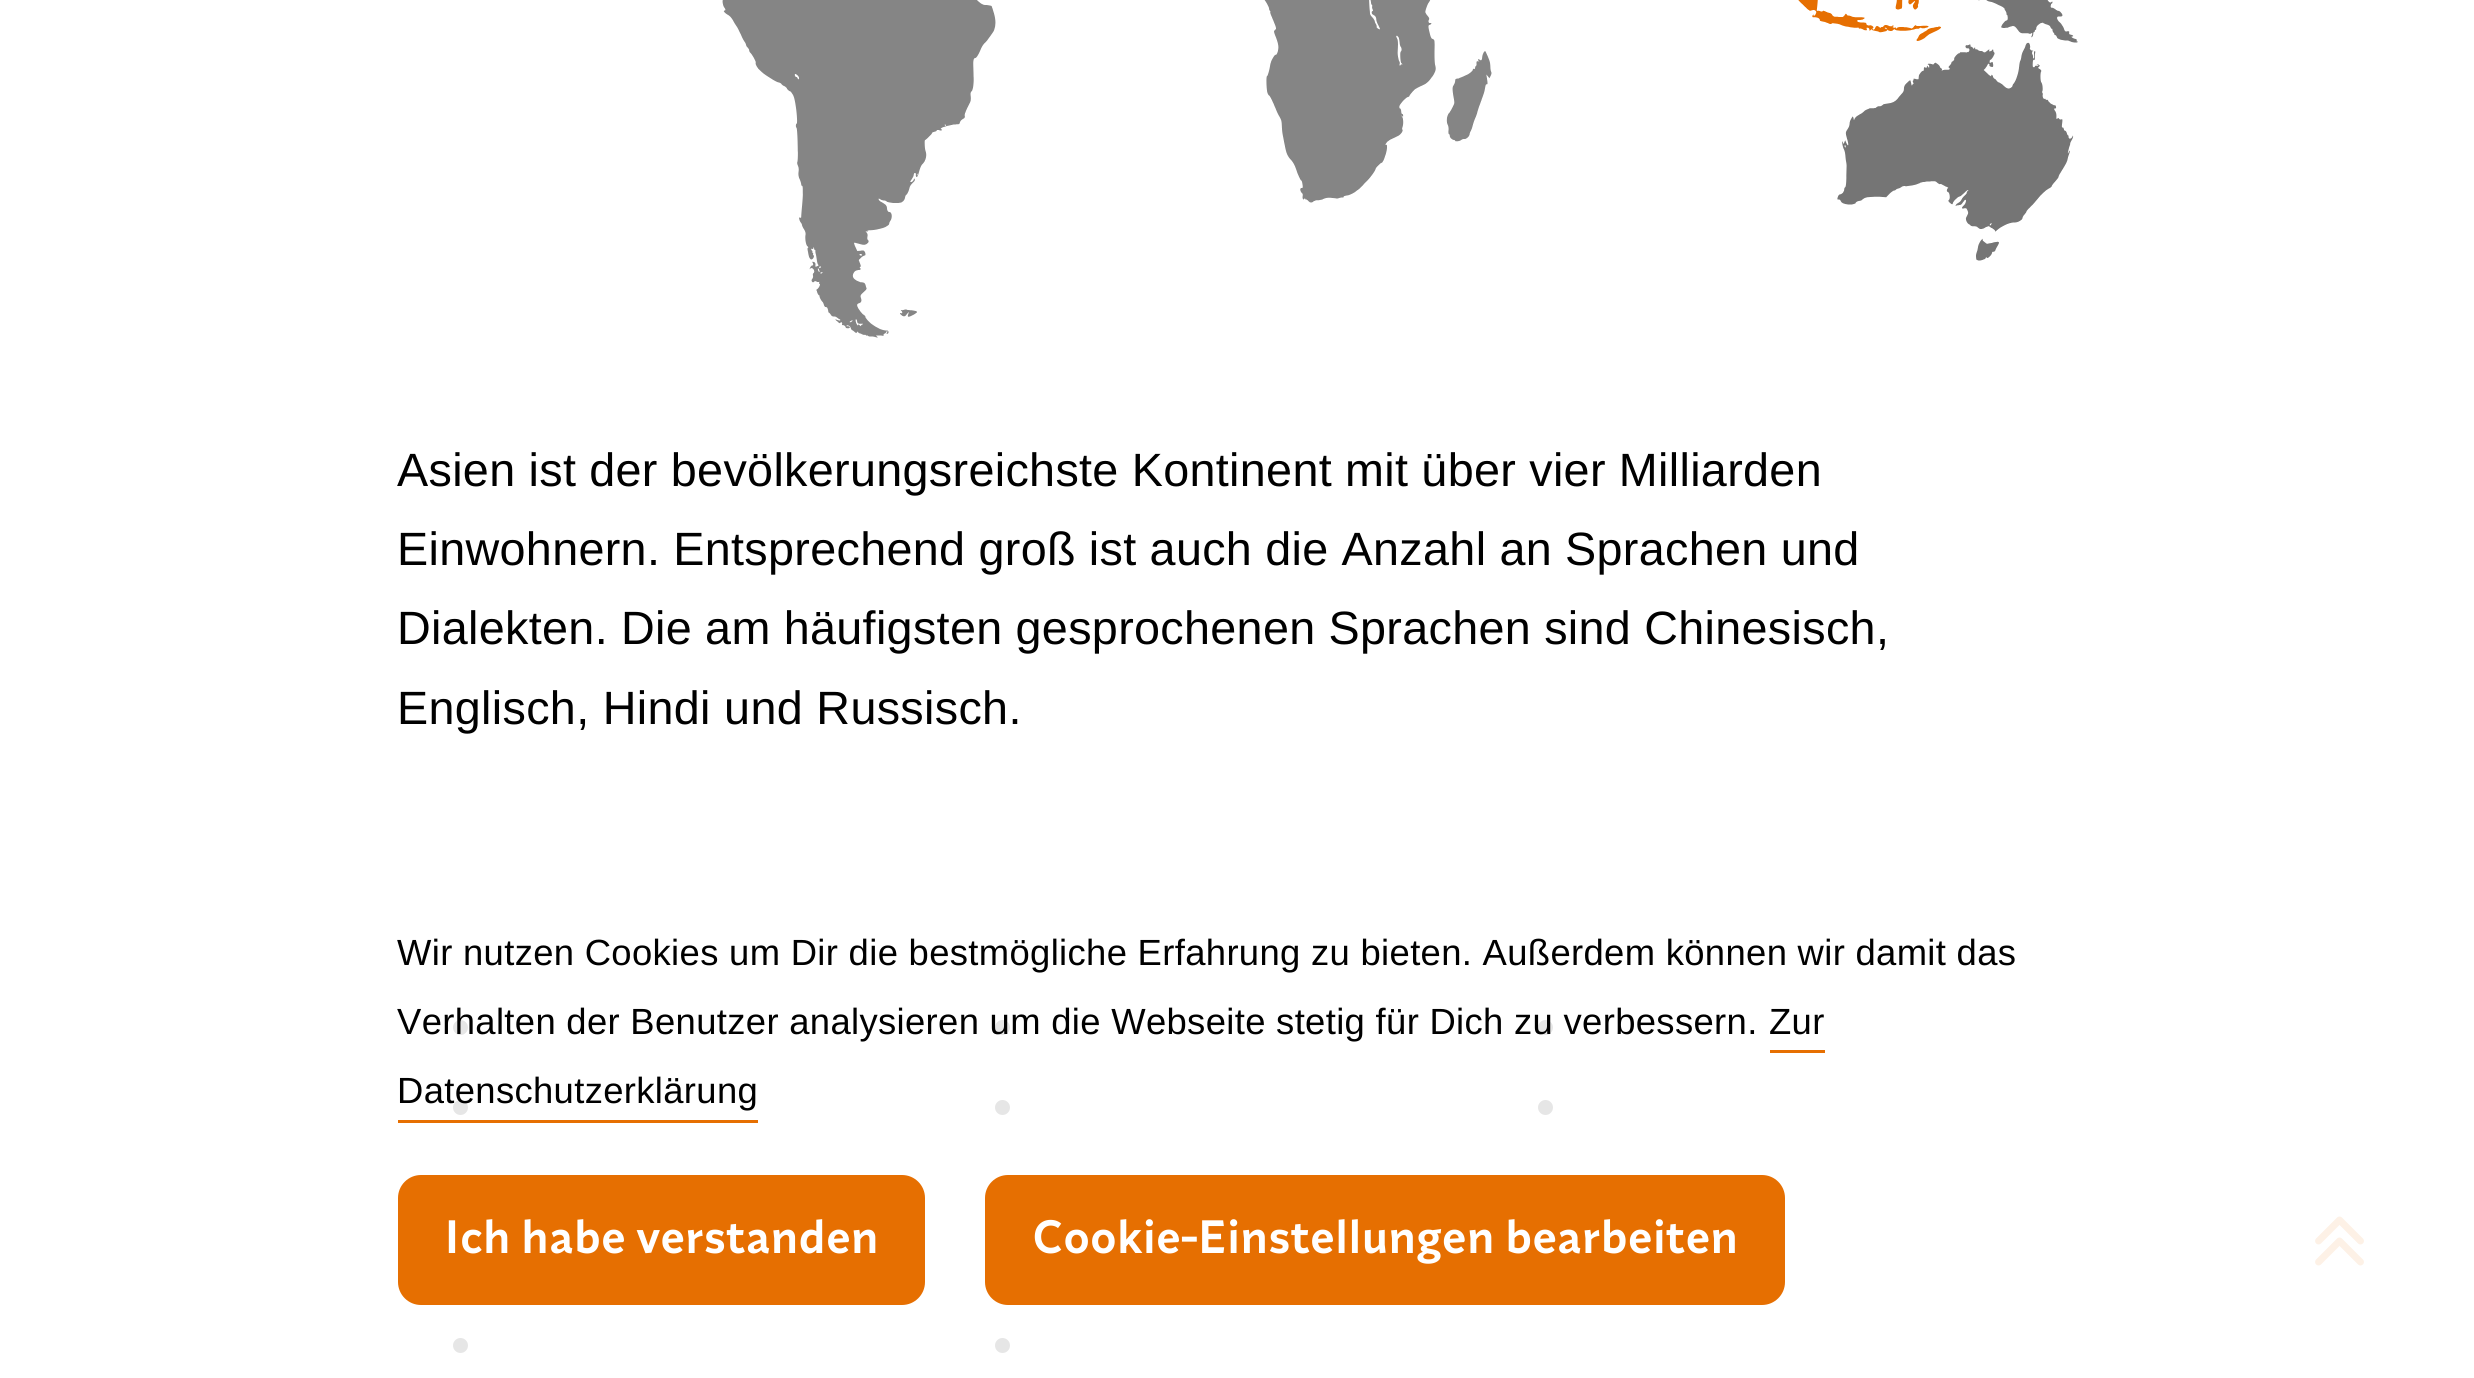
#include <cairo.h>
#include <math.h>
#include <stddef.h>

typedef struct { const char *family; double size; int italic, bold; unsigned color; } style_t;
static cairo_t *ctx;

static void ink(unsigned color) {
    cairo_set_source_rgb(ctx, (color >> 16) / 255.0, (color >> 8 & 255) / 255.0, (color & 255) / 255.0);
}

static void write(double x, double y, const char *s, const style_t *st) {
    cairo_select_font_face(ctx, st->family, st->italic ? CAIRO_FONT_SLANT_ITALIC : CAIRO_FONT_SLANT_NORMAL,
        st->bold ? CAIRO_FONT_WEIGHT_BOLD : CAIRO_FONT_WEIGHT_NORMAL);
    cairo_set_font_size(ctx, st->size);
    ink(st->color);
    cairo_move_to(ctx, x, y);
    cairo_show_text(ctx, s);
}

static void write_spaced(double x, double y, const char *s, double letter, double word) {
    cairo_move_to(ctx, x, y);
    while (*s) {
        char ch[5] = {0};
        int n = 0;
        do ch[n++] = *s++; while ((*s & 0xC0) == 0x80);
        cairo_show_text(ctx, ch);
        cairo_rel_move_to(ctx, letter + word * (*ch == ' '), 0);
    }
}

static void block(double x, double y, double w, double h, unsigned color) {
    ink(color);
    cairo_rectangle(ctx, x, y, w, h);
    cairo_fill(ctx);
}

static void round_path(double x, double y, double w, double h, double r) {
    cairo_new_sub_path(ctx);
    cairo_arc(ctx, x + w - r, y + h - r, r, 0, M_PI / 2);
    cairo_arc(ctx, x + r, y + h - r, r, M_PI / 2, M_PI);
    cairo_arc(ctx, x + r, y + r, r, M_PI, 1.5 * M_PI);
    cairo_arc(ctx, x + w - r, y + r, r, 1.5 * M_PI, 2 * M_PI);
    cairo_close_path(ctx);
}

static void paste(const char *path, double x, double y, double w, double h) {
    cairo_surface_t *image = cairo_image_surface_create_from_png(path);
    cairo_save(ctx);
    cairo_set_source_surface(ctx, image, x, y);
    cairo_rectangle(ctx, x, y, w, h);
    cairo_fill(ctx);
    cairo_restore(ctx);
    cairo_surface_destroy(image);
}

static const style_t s1 = {"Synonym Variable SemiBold", 46.7, 0, 0, 0xffffff};

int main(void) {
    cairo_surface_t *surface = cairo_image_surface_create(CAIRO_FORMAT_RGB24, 2474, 1378);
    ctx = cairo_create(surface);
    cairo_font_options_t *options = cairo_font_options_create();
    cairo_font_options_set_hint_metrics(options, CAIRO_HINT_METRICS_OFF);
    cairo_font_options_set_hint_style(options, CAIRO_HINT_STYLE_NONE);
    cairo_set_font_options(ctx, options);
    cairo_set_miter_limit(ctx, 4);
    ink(0xffffff);
    cairo_paint(ctx);
    paste("pic1.png", 722, 0, 1356, 338);
    cairo_select_font_face(ctx, "Liberation Sans", CAIRO_FONT_SLANT_NORMAL, CAIRO_FONT_WEIGHT_NORMAL);
    cairo_set_font_size(ctx, 46.7);
    ink(0x000000);
    write_spaced(397, 486, "Asien ist der bevölkerungsreichste Kontinent mit über vier Milliarden", 0.33, -0.25);
    write_spaced(397, 565, "Einwohnern. Entsprechend groß ist auch die Anzahl an Sprachen und", 0.33, -0.25);
    write_spaced(397, 644, "Dialekten. Die am häufigsten gesprochenen Sprachen sind Chinesisch,", 0.33, -0.25);
    write_spaced(397, 724, "Englisch, Hindi und Russisch.", 0.33, 0);
    cairo_new_path(ctx);
    cairo_arc(ctx, 460.5, 1027.5, 7.5, 0, 2 * M_PI);
    cairo_fill(ctx);
    cairo_arc(ctx, 1002.5, 1027.5, 7.5, 0, 2 * M_PI);
    cairo_fill(ctx);
    cairo_arc(ctx, 1545.5, 1027.5, 7.5, 0, 2 * M_PI);
    cairo_fill(ctx);
    cairo_arc(ctx, 460.5, 1107.5, 7.5, 0, 2 * M_PI);
    cairo_fill(ctx);
    cairo_arc(ctx, 1002.5, 1107.5, 7.5, 0, 2 * M_PI);
    cairo_fill(ctx);
    cairo_arc(ctx, 1545.5, 1107.5, 7.5, 0, 2 * M_PI);
    cairo_fill(ctx);
    cairo_arc(ctx, 460.5, 1345.5, 7.5, 0, 2 * M_PI);
    cairo_fill(ctx);
    cairo_arc(ctx, 1002.5, 1345.5, 7.5, 0, 2 * M_PI);
    cairo_fill(ctx);
    paste("pic2.png", 2315, 1216, 49, 50);
    cairo_set_source_rgba(ctx, 1, 1, 1, 0.9);
    cairo_rectangle(ctx, 453, 1020, 1911, 333);
    cairo_fill(ctx);
    cairo_set_font_size(ctx, 36.4);
    ink(0x000000);
    write_spaced(397, 965, "Wir nutzen Cookies um Dir die bestmögliche Erfahrung zu bieten. Außerdem können wir damit das", 0.35, -0.1);
    write_spaced(397, 1034, "Verhalten der Benutzer analysieren um die Webseite stetig für Dich zu verbessern.", 0.35, -0.1);
    write_spaced(1769, 1034, "Zur", 0.35, 0);
    block(1770, 1050, 55, 3, 0xe66f01);
    ink(0x000000);
    write_spaced(397, 1103, "Datenschutzerklärung", 0.35, 0);
    block(398, 1120, 360, 3, 0xe66f01);
    round_path(400.5, 1177.5, 522, 125, 20.5);
    cairo_fill_preserve(ctx);
    cairo_set_line_width(ctx, 5);
    cairo_stroke(ctx);
    write(444, 1253, "Ich habe verstanden", &s1);
    ink(0xe66f01);
    round_path(987.5, 1177.5, 795, 125, 20.5);
    cairo_fill_preserve(ctx);
    cairo_stroke(ctx);
    write(1032, 1253, "Cookie-Einstellungen bearbeiten", &s1);
    cairo_surface_write_to_png(surface, "screenshot.png");
    cairo_font_options_destroy(options);
    cairo_destroy(ctx);
    cairo_surface_destroy(surface);
    return 0;
}
